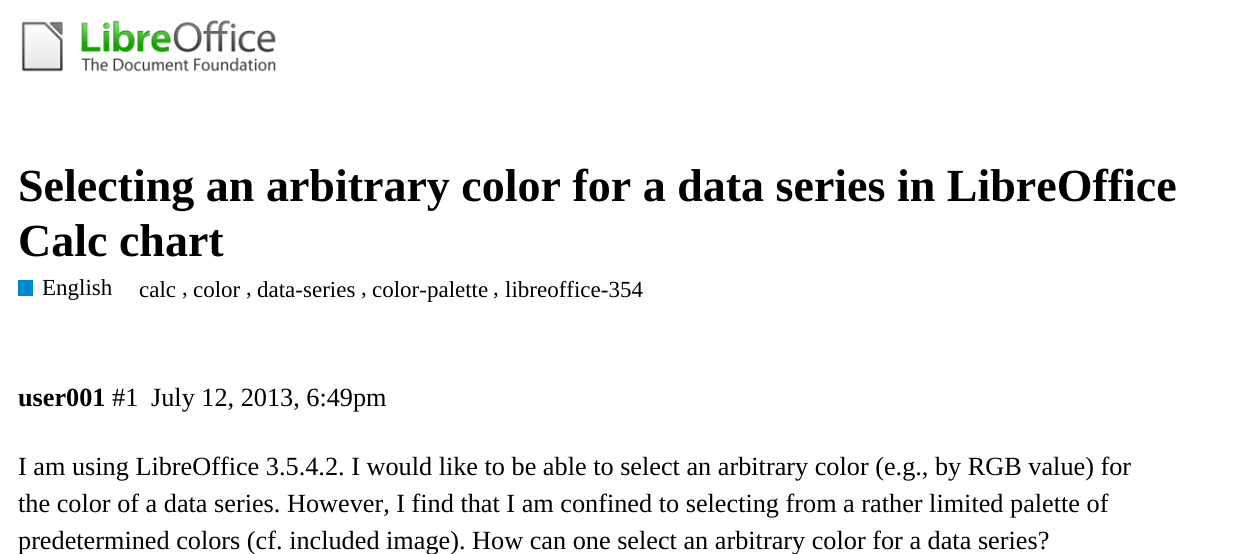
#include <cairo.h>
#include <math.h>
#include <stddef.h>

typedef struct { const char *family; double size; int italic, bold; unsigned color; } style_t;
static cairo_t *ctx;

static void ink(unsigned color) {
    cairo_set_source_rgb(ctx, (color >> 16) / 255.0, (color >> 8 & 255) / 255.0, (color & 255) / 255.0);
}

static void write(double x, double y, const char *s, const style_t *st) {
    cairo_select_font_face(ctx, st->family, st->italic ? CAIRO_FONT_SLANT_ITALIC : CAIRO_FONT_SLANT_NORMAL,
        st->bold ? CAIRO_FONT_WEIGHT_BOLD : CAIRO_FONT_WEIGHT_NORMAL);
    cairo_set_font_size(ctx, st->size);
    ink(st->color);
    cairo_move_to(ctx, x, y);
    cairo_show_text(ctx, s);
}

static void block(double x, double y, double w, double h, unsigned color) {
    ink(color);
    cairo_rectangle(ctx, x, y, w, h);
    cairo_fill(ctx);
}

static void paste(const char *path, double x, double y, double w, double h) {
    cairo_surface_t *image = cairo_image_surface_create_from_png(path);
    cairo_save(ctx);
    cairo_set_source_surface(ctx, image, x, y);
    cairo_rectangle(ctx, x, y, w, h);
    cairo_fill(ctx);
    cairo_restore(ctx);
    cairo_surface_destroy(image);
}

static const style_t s1 = {"Liberation Serif", 46, 0, 1, 0x000000};
static const style_t s2 = {"Liberation Serif", 23, 0, 0, 0x000000};
static const style_t s3 = {"Liberation Serif", 26.25, 0, 1, 0x000000};
static const style_t s4 = {"Liberation Serif", 26.25, 0, 0, 0x000000};

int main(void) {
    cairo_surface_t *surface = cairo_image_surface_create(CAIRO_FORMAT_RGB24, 1234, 554);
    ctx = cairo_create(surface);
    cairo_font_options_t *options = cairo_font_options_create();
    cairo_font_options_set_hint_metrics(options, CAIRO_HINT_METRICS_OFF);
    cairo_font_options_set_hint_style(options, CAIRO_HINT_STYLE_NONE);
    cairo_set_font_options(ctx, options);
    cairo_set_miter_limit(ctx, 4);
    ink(0xffffff);
    cairo_paint(ctx);
    paste("pic1.png", 21, 20, 255, 52);
    write(18, 201, "Selecting an arbitrary color for a data series in LibreOffice", &s1);
    write(18, 256, "Calc chart", &s1);
    block(18, 280, 15, 16, 0x0088cc);
    write(42, 295, "English", &s2);
    write(139, 297, "calc", &s2);
    write(182, 295, ",", &s2);
    write(193, 297, "color", &s2);
    write(246, 295, ",", &s2);
    write(257, 297, "data-series", &s2);
    write(361, 295, ",", &s2);
    write(372, 297, "color-palette", &s2);
    write(493, 295, ",", &s2);
    write(505, 297, "libreoffice-354", &s2);
    write(18, 406, "user001", &s3);
    write(112, 406, "#1", &s4);
    write(151, 406, "July 12, 2013, 6:49pm", &s4);
    write(18, 475, "I am using LibreOffice 3.5.4.2. I would like to be able to select an arbitrary color (e.g., by RGB value) for", &s4);
    write(18, 512, "the color of a data series. However, I find that I am confined to selecting from a rather limited palette of", &s4);
    write(18, 549, "predetermined colors (cf. included image). How can one select an arbitrary color for a data series?", &s4);
    cairo_surface_write_to_png(surface, "screenshot.png");
    cairo_font_options_destroy(options);
    cairo_destroy(ctx);
    cairo_surface_destroy(surface);
    return 0;
}
